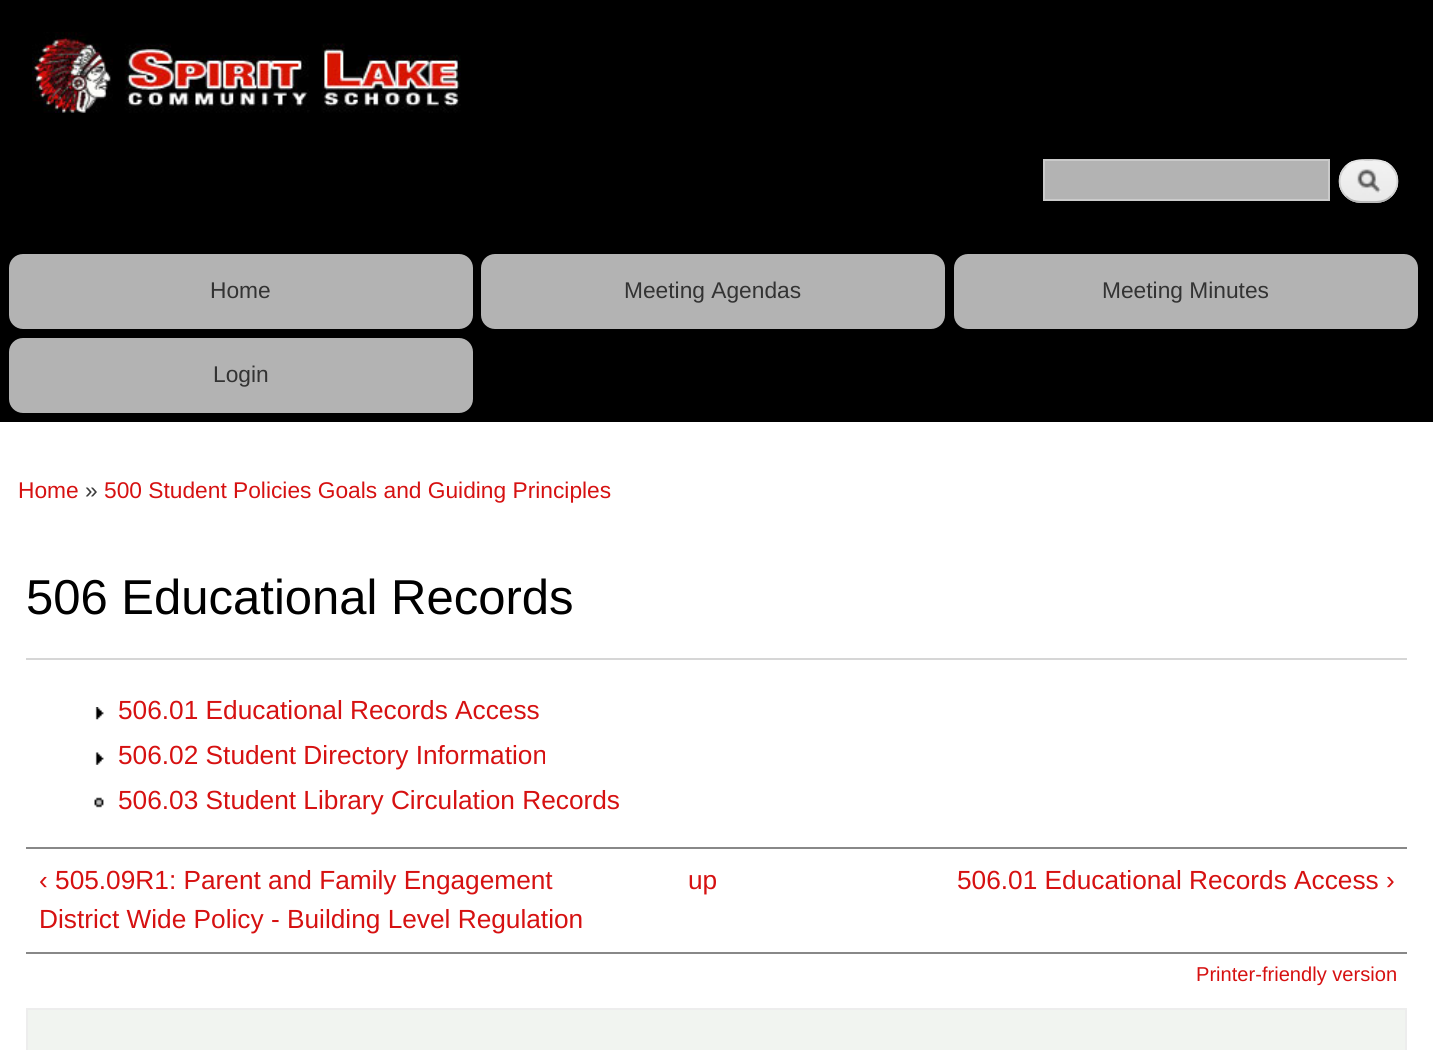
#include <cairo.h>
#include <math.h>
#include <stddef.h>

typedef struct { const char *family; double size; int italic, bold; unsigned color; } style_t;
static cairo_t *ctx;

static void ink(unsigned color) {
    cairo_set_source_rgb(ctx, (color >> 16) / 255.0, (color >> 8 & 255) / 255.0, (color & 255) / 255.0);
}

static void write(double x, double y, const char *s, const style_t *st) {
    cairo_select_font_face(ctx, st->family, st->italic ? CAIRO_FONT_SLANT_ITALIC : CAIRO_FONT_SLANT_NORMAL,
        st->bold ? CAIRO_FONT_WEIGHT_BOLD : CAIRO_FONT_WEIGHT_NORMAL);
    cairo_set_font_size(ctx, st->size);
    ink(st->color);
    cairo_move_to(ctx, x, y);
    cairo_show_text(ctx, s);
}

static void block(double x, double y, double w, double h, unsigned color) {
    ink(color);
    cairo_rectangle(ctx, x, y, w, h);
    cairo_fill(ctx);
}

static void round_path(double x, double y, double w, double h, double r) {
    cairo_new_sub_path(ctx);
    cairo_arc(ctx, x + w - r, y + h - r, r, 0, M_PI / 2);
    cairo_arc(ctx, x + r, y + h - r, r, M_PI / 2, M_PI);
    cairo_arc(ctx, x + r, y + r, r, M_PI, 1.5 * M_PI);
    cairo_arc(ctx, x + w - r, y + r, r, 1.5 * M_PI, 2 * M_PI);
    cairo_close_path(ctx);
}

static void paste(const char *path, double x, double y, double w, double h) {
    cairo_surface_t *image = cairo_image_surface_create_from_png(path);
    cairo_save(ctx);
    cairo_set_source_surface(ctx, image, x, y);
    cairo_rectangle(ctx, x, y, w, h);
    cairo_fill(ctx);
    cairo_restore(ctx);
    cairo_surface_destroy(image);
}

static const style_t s1 = {"Liberation Sans", 22.75, 0, 0, 0x333333};
static const style_t s2 = {"Liberation Sans", 22.75, 0, 0, 0xd61111};
static const style_t s3 = {"Liberation Sans", 22.75, 0, 0, 0x3b3b3b};
static const style_t s4 = {"Liberation Sans", 49, 0, 0, 0x000000};
static const style_t s5 = {"Liberation Sans", 26.25, 0, 0, 0xd61111};
static const style_t s6 = {"Liberation Sans", 20.1, 0, 0, 0xd61111};

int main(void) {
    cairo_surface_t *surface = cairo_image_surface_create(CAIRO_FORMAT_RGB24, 1433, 1050);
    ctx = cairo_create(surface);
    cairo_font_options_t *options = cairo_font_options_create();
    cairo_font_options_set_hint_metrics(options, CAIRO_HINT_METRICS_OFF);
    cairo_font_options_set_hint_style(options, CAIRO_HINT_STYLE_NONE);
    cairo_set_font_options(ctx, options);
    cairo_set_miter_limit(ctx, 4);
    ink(0xffffff);
    cairo_paint(ctx);
    block(0, 0, 1433, 422, 0x000000);
    paste("pic1.png", 32, 32, 429, 81);
    ink(0xb3b3b3);
    cairo_rectangle(ctx, 1044, 160, 285, 40);
    cairo_fill_preserve(ctx);
    ink(0xcacaca);
    cairo_stroke(ctx);
    paste("pic2.png", 1338, 161, 61, 42);
    cairo_new_path(ctx);
    cairo_move_to(ctx, 1346, 166.5);
    cairo_curve_to(ctx, 1352, 160, 1360, 160, 1368.5, 160);
    cairo_curve_to(ctx, 1377, 160, 1385, 160, 1391, 166.5);
    ink(0xe4e4e4);
    cairo_set_line_width(ctx, 1.8);
    cairo_stroke(ctx);
    cairo_new_path(ctx);
    cairo_move_to(ctx, 1391, 166.5);
    cairo_curve_to(ctx, 1399.5, 174.5, 1399.5, 188, 1391, 196);
    ink(0xd2d2d2);
    cairo_stroke(ctx);
    cairo_new_path(ctx);
    cairo_move_to(ctx, 1391, 196);
    cairo_curve_to(ctx, 1385, 202.5, 1377, 202, 1368.5, 202);
    cairo_curve_to(ctx, 1360, 202, 1352, 202.5, 1346, 196);
    ink(0xb4b4b4);
    cairo_stroke(ctx);
    cairo_new_path(ctx);
    cairo_move_to(ctx, 1346, 196);
    cairo_curve_to(ctx, 1337.5, 188, 1337.5, 174.5, 1346, 166.5);
    ink(0xd2d2d2);
    cairo_stroke(ctx);
    ink(0xb3b3b3);
    round_path(9, 254, 464, 75, 14);
    cairo_fill(ctx);
    write(210, 298, "Home", &s1);
    ink(0xb3b3b3);
    round_path(481, 254, 464, 75, 14);
    cairo_fill(ctx);
    write(624, 298, "Meeting Agendas", &s1);
    ink(0xb3b3b3);
    round_path(954, 254, 464, 75, 14);
    cairo_fill(ctx);
    write(1102, 298, "Meeting Minutes", &s1);
    ink(0xb3b3b3);
    round_path(9, 338, 464, 75, 14);
    cairo_fill(ctx);
    write(213, 382, "Login", &s1);
    write(18, 498, "Home", &s2);
    write(85, 498, "»", &s3);
    write(104, 498, "500 Student Policies Goals and Guiding Principles", &s2);
    write(26, 614, "506 Educational Records", &s4);
    block(26, 658, 1381, 2, 0xd6d6d6);
    paste("pic3.png", 95, 707, 9, 13);
    write(118, 719, "506.01 Educational Records Access", &s5);
    paste("pic4.png", 95, 752, 9, 13);
    write(118, 764, "506.02 Student Directory Information", &s5);
    paste("pic5.png", 94, 797, 10, 11);
    write(118, 809, "506.03 Student Library Circulation Records", &s5);
    block(26, 847, 1381, 2, 0x888888);
    block(26, 952, 1381, 2, 0x888888);
    write(39, 889, "‹ 505.09R1: Parent and Family Engagement", &s5);
    write(39, 928, "District Wide Policy - Building Level Regulation", &s5);
    write(688, 889, "up", &s5);
    write(957, 889, "506.01 Educational Records Access ›", &s5);
    write(1196, 981, "Printer-friendly version", &s6);
    ink(0xf1f4f0);
    cairo_rectangle(ctx, 27, 1009, 1379, 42);
    cairo_fill_preserve(ctx);
    ink(0xededed);
    cairo_set_line_width(ctx, 2);
    cairo_stroke(ctx);
    cairo_surface_write_to_png(surface, "screenshot.png");
    cairo_font_options_destroy(options);
    cairo_destroy(ctx);
    cairo_surface_destroy(surface);
    return 0;
}
